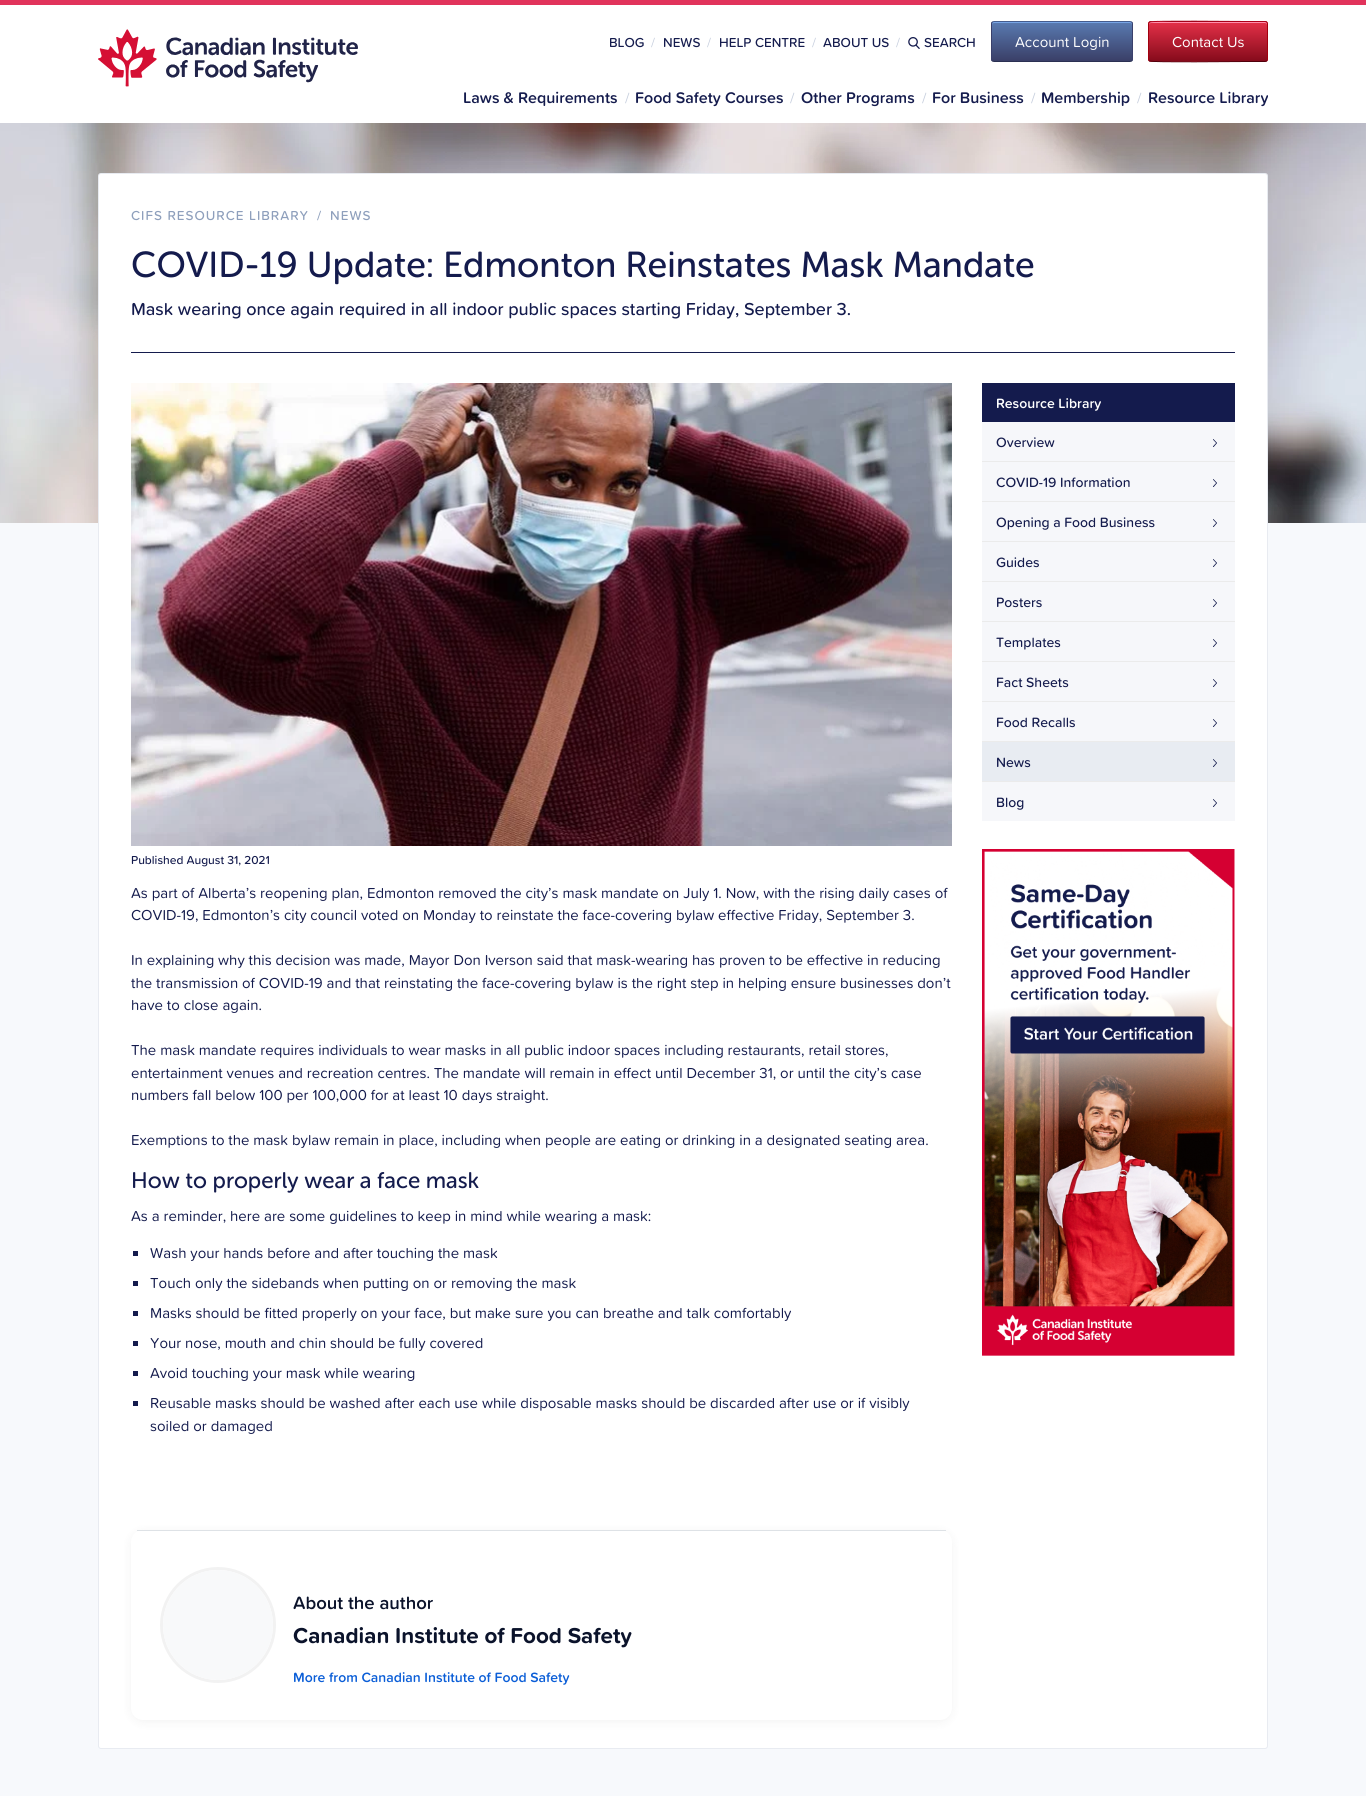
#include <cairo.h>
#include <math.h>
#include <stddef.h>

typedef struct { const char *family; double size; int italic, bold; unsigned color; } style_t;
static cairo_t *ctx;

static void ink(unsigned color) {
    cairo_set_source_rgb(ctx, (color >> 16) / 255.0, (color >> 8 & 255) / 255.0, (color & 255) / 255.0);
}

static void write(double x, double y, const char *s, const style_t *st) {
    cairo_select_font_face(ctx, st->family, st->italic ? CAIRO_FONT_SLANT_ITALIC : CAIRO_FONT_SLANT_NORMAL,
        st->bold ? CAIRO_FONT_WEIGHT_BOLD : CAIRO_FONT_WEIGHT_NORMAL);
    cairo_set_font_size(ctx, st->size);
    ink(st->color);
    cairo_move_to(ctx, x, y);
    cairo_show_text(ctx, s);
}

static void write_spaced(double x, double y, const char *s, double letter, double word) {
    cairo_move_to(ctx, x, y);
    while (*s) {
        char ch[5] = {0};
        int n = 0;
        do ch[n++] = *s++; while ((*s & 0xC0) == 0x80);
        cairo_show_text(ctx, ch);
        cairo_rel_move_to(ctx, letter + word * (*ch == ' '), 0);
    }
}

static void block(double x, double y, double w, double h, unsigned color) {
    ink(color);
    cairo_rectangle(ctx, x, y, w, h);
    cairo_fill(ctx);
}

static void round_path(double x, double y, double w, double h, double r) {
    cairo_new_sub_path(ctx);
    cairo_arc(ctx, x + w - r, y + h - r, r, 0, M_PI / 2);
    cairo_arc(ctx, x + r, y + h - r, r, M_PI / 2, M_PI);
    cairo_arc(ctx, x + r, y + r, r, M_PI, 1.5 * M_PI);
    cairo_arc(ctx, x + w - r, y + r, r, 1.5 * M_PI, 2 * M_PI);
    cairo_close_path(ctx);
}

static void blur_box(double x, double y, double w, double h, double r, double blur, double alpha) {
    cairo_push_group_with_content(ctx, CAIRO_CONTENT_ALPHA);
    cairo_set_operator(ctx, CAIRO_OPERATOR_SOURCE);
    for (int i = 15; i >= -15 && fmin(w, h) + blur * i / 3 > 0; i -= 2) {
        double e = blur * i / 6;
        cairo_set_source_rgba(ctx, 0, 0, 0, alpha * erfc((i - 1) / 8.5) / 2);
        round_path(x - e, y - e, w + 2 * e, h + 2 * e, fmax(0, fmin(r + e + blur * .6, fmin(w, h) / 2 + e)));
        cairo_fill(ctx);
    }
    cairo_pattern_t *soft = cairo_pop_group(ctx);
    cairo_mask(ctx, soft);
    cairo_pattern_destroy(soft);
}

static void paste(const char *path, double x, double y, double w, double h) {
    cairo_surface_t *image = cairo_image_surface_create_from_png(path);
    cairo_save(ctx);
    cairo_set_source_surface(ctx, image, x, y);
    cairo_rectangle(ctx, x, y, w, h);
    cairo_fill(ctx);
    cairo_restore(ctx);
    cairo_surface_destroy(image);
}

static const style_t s1 = {"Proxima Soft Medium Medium", 13.5, 0, 0, 0x141b4d};
static const style_t s2 = {"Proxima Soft", 13.5, 0, 0, 0xc7cfde};
static const style_t s3 = {"Proxima Soft", 15, 0, 0, 0xffffff};
static const style_t s4 = {"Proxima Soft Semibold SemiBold", 16, 0, 0, 0x141b4d};
static const style_t s5 = {"Proxima Soft", 15, 0, 0, 0xc7cfde};
static const style_t s6 = {"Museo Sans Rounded", 36, 0, 0, 0x141b4d};
static const style_t s7 = {"Proxima Soft Medium Medium", 18, 0, 0, 0x141b4d};
static const style_t s8 = {"Proxima Soft Semibold SemiBold", 14, 0, 0, 0xffffff};
static const style_t s9 = {"Proxima Soft Medium Medium", 14, 0, 0, 0x141b4d};
static const style_t s10 = {"Proxima Soft Medium Medium", 12, 0, 0, 0x141b4d};
static const style_t s11 = {"Proxima Soft", 15, 0, 0, 0x141b4d};
static const style_t s12 = {"Museo Sans Rounded", 22.5, 0, 0, 0x141b4d};
static const style_t s13 = {"Proxima Soft Semibold SemiBold", 18.5, 0, 0, 0x0b132b};
static const style_t s14 = {"Proxima Soft", 22.4, 0, 1, 0x0b132b};
static const style_t s15 = {"Proxima Soft Semibold SemiBold", 14, 0, 0, 0x0b5ed7};

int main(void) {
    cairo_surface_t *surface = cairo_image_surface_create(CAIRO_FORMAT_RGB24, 1366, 1796);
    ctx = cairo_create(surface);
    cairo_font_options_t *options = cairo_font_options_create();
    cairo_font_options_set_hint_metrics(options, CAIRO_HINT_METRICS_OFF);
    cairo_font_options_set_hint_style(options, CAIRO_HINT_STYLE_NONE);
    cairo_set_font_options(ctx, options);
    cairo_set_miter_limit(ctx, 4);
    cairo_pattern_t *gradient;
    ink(0xffffff);
    cairo_paint(ctx);
    block(0, 0, 1366, 5, 0xe1335b);
    paste("pic1.png", 98, 29, 260, 58);
    write(609, 47, "BLOG", &s1);
    write(651, 47, "/", &s2);
    write(663, 47, "NEWS", &s1);
    write(707, 47, "/", &s2);
    write(719, 47, "HELP CENTRE", &s1);
    write(812, 47, "/", &s2);
    write(823, 47, "ABOUT US", &s1);
    write(896, 47, "/", &s2);
    paste("pic2.png", 908, 37, 12, 12);
    write(924, 47, "SEARCH", &s1);
    cairo_save(ctx);
    round_path(991, 21, 142, 41, 3);
    cairo_clip(ctx);
    gradient = cairo_pattern_create_linear(1062, 22, 1062, 61);
    cairo_pattern_add_color_stop_rgba(gradient, 0, 0.349, 0.478, 0.694, 1);
    cairo_pattern_add_color_stop_rgba(gradient, 1, 0.227, 0.247, 0.404, 1);
    cairo_set_source(ctx, gradient);
    cairo_pattern_destroy(gradient);
    cairo_rectangle(ctx, 991, 22, 142, 39);
    cairo_fill(ctx);
    cairo_restore(ctx);
    ink(0x77a5e6);
    cairo_new_path(ctx);
    cairo_move_to(ctx, 994, 23);
    cairo_line_to(ctx, 1130, 23);
    cairo_curve_to(ctx, 1131, 23, 1132, 24, 1132, 25);
    cairo_curve_to(ctx, 1132, 24, 1132, 22, 1130, 22);
    cairo_line_to(ctx, 994, 22);
    cairo_curve_to(ctx, 992, 22, 992, 24, 992, 25);
    cairo_curve_to(ctx, 992, 24, 993, 23, 994, 23);
    cairo_close_path(ctx);
    cairo_fill(ctx);
    cairo_new_path(ctx);
    cairo_move_to(ctx, 992, 22);
    cairo_line_to(ctx, 994, 21.5);
    cairo_line_to(ctx, 1130, 21.5);
    cairo_line_to(ctx, 1132, 22);
    ink(0x445c8e);
    cairo_set_line_width(ctx, 1);
    cairo_stroke(ctx);
    cairo_new_path(ctx);
    cairo_move_to(ctx, 1132, 22);
    cairo_line_to(ctx, 1132.5, 24);
    cairo_line_to(ctx, 1132.5, 59);
    cairo_line_to(ctx, 1132, 61);
    ink(0x3a406b);
    cairo_stroke(ctx);
    cairo_new_path(ctx);
    cairo_move_to(ctx, 1132, 61);
    cairo_line_to(ctx, 1130, 61.5);
    cairo_line_to(ctx, 994, 61.5);
    cairo_line_to(ctx, 992, 61);
    ink(0x2a3052);
    cairo_stroke(ctx);
    cairo_new_path(ctx);
    cairo_move_to(ctx, 992, 61);
    cairo_line_to(ctx, 991.5, 59);
    cairo_line_to(ctx, 991.5, 24);
    cairo_line_to(ctx, 992, 22);
    ink(0x3a406b);
    cairo_stroke(ctx);
    write(1015, 47, "Account Login", &s3);
    cairo_save(ctx);
    round_path(1148, 21, 120, 41, 3);
    cairo_clip(ctx);
    gradient = cairo_pattern_create_linear(1208, -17, 1208, 22);
    cairo_pattern_add_color_stop_rgba(gradient, 0, 0.894, 0.188, 0.282, 1);
    cairo_pattern_add_color_stop_rgba(gradient, 1, 0.525, 0.043, 0.106, 1);
    cairo_set_source(ctx, gradient);
    cairo_pattern_destroy(gradient);
    cairo_rectangle(ctx, 1148, 21, 120, 1);
    cairo_fill(ctx);
    gradient = cairo_pattern_create_linear(1208, 22, 1208, 61);
    cairo_pattern_add_color_stop_rgba(gradient, 0, 0.894, 0.188, 0.282, 1);
    cairo_pattern_add_color_stop_rgba(gradient, 1, 0.525, 0.043, 0.106, 1);
    cairo_set_source(ctx, gradient);
    cairo_pattern_destroy(gradient);
    cairo_rectangle(ctx, 1148, 22, 120, 39);
    cairo_fill(ctx);
    gradient = cairo_pattern_create_linear(1208, 61, 1208, 100);
    cairo_pattern_add_color_stop_rgba(gradient, 0, 0.894, 0.188, 0.282, 1);
    cairo_pattern_add_color_stop_rgba(gradient, 1, 0.525, 0.043, 0.106, 1);
    cairo_set_source(ctx, gradient);
    cairo_pattern_destroy(gradient);
    cairo_rectangle(ctx, 1148, 61, 120, 1);
    cairo_fill(ctx);
    cairo_restore(ctx);
    ink(0xff8fac);
    cairo_new_path(ctx);
    cairo_move_to(ctx, 1151, 23);
    cairo_line_to(ctx, 1265, 23);
    cairo_curve_to(ctx, 1266, 23, 1267, 24, 1267, 25);
    cairo_curve_to(ctx, 1267, 24, 1267, 23, 1266, 22);
    cairo_line_to(ctx, 1170, 22);
    cairo_curve_to(ctx, 1164, 22, 1149, 18, 1149, 25);
    cairo_curve_to(ctx, 1149, 24, 1150, 23, 1151, 23);
    cairo_close_path(ctx);
    cairo_fill(ctx);
    cairo_new_path(ctx);
    cairo_move_to(ctx, 1149, 22);
    cairo_line_to(ctx, 1149.5, 22);
    cairo_curve_to(ctx, 1151.5, 20.5, 1236.5, 21.5, 1246, 21.5);
    cairo_line_to(ctx, 1265, 21.5);
    cairo_line_to(ctx, 1267, 22);
    ink(0xad0018);
    cairo_stroke(ctx);
    cairo_new_path(ctx);
    cairo_move_to(ctx, 1267, 22);
    cairo_line_to(ctx, 1267.5, 24);
    cairo_line_to(ctx, 1267.5, 59);
    cairo_line_to(ctx, 1267, 61);
    ink(0xa2000e);
    cairo_stroke(ctx);
    cairo_new_path(ctx);
    cairo_move_to(ctx, 1267, 61);
    cairo_line_to(ctx, 1265, 61.5);
    cairo_line_to(ctx, 1246, 61.5);
    cairo_curve_to(ctx, 1236.5, 61.5, 1151.5, 62.5, 1149.5, 61);
    cairo_line_to(ctx, 1149, 61);
    ink(0x50000b);
    cairo_stroke(ctx);
    cairo_new_path(ctx);
    cairo_move_to(ctx, 1149, 61);
    cairo_line_to(ctx, 1148.5, 59);
    cairo_line_to(ctx, 1148.5, 24);
    cairo_line_to(ctx, 1149, 22);
    ink(0xa2000e);
    cairo_stroke(ctx);
    write(1172, 47, "Contact Us", &s3);
    write(463, 103, "Laws & Requirements", &s4);
    write(625, 103, "/", &s5);
    write(635, 103, "Food Safety Courses", &s4);
    write(790, 103, "/", &s5);
    write(801, 103, "Other Programs", &s4);
    write(922, 103, "/", &s5);
    write(932, 103, "For Business", &s4);
    write(1031, 103, "/", &s5);
    write(1041, 103, "Membership", &s4);
    write(1137, 103, "/", &s5);
    write(1148, 103, "Resource Library", &s4);
    block(0, 523, 1366, 1273, 0xf7f9fc);
    paste("pic3.png", 0, 123, 1366, 400);
    ink(0xffffff);
    round_path(98, 173, 1170, 1576, 3);
    cairo_fill(ctx);
    round_path(98.5, 173.5, 1169, 1575, 2.5);
    cairo_set_source_rgba(ctx, 0.557, 0.624, 0.737, 0.2);
    cairo_stroke(ctx);
    block(131, 352, 1104, 1, 0x141b4d);
    cairo_select_font_face(ctx, "Proxima Soft Medium Medium", CAIRO_FONT_SLANT_NORMAL, CAIRO_FONT_WEIGHT_NORMAL);
    cairo_set_font_size(ctx, 13.5);
    ink(0x8e9fbc);
    write_spaced(131, 220, "CIFS RESOURCE LIBRARY", 1, 0);
    write_spaced(317, 220, "/", 1, 0);
    write_spaced(330, 220, "NEWS", 1, 0);
    write(131, 277, "COVID-19 Update: Edmonton Reinstates Mask Mandate", &s6);
    write(131, 315, "Mask wearing once again required in all indoor public spaces starting Friday, September 3.", &s7);
    block(982, 383, 253, 39, 0x141b4d);
    write(996, 408, "Resource Library", &s8);
    block(982, 461, 253, 1, 0xebebeb);
    block(982, 422, 253, 39, 0xf6f7fa);
    write(996, 447, "Overview", &s9);
    paste("pic4.png", 1213, 439, 4, 8);
    block(982, 501, 253, 1, 0xebebeb);
    block(982, 462, 253, 39, 0xf6f7fa);
    write(996, 487, "COVID-19 Information", &s9);
    paste("pic4.png", 1213, 479, 4, 8);
    block(982, 541, 253, 1, 0xebebeb);
    block(982, 502, 253, 39, 0xf6f7fa);
    write(996, 527, "Opening a Food Business", &s9);
    paste("pic4.png", 1213, 519, 4, 8);
    block(982, 581, 253, 1, 0xebebeb);
    block(982, 542, 253, 39, 0xf6f7fa);
    write(996, 567, "Guides", &s9);
    paste("pic4.png", 1213, 559, 4, 8);
    block(982, 621, 253, 1, 0xebebeb);
    block(982, 582, 253, 39, 0xf6f7fa);
    write(996, 607, "Posters", &s9);
    paste("pic4.png", 1213, 599, 4, 8);
    block(982, 661, 253, 1, 0xebebeb);
    block(982, 622, 253, 39, 0xf6f7fa);
    write(996, 647, "Templates", &s9);
    paste("pic4.png", 1213, 639, 4, 8);
    block(982, 701, 253, 1, 0xebebeb);
    block(982, 662, 253, 39, 0xf6f7fa);
    write(996, 687, "Fact Sheets", &s9);
    paste("pic4.png", 1213, 679, 4, 8);
    block(982, 741, 253, 1, 0xebebeb);
    block(982, 702, 253, 39, 0xf6f7fa);
    write(996, 727, "Food Recalls", &s9);
    paste("pic4.png", 1213, 719, 4, 8);
    block(982, 781, 253, 1, 0xebebeb);
    block(982, 742, 253, 39, 0xe8ecf2);
    write(996, 767, "News", &s9);
    paste("pic5.png", 1213, 759, 4, 8);
    block(982, 782, 253, 39, 0xf6f7fa);
    write(996, 807, "Blog", &s9);
    paste("pic4.png", 1213, 799, 4, 8);
    paste("pic6.png", 982, 849, 253, 507);
    paste("pic7.png", 131, 383, 821, 463);
    write(131, 864, "Published August 31, 2021", &s10);
    write(131, 898, "As part of Alberta’s reopening plan, Edmonton removed the city’s mask mandate on July 1. Now, with the rising daily cases of", &s11);
    write(131, 920, "COVID-19, Edmonton’s city council voted on Monday to reinstate the face-covering bylaw effective Friday, September 3.", &s11);
    write(131, 965, "In explaining why this decision was made, Mayor Don Iverson said that mask-wearing has proven to be effective in reducing", &s11);
    write(131, 988, "the transmission of COVID-19 and that reinstating the face-covering bylaw is the right step in helping ensure businesses don’t", &s11);
    write(131, 1010, "have to close again.", &s11);
    write(131, 1055, "The mask mandate requires individuals to wear masks in all public indoor spaces including restaurants, retail stores,", &s11);
    write(131, 1078, "entertainment venues and recreation centres. The mandate will remain in effect until December 31, or until the city’s case", &s11);
    write(131, 1100, "numbers fall below 100 per 100,000 for at least 10 days straight.", &s11);
    write(131, 1145, "Exemptions to the mask bylaw remain in place, including when people are eating or drinking in a designated seating area.", &s11);
    write(131, 1188, "How to properly wear a face mask", &s12);
    write(131, 1221, "As a reminder, here are some guidelines to keep in mind while wearing a mask:", &s11);
    block(133, 1251, 5, 5, 0x141b4d);
    write(150, 1258, "Wash your hands before and after touching the mask", &s11);
    block(133, 1281, 5, 5, 0x141b4d);
    write(150, 1288, "Touch only the sidebands when putting on or removing the mask", &s11);
    block(133, 1311, 5, 5, 0x141b4d);
    write(150, 1318, "Masks should be fitted properly on your face, but make sure you can breathe and talk comfortably", &s11);
    block(133, 1341, 5, 5, 0x141b4d);
    write(150, 1348, "Your nose, mouth and chin should be fully covered", &s11);
    block(133, 1371, 5, 5, 0x141b4d);
    write(150, 1378, "Avoid touching your mask while wearing", &s11);
    block(133, 1401, 5, 5, 0x141b4d);
    write(150, 1408, "Reusable masks should be washed after each use while disposable masks should be discarded after use or if visibly", &s11);
    write(150, 1431, "soiled or damaged", &s11);
    ink(0x000000);
    blur_box(131, 1532, 821, 190, 12, 5, 0.05);
    ink(0xffffff);
    round_path(131, 1530, 821, 190, 12);
    cairo_fill(ctx);
    block(137, 1530, 809, 1, 0xdee2e6);
    cairo_arc(ctx, 218, 1625, 56.5, 0, 2 * M_PI);
    ink(0xf2f2f2);
    cairo_set_line_width(ctx, 3);
    cairo_stroke(ctx);
    ink(0xf8f9fa);
    cairo_arc(ctx, 218, 1625, 55, 0, 2 * M_PI);
    cairo_fill(ctx);
    write(293, 1609, "About the author", &s13);
    write(293, 1643, "Canadian Institute of Food Safety", &s14);
    write(293, 1682, "More from Canadian Institute of Food Safety", &s15);
    cairo_surface_write_to_png(surface, "screenshot.png");
    cairo_font_options_destroy(options);
    cairo_destroy(ctx);
    cairo_surface_destroy(surface);
    return 0;
}
